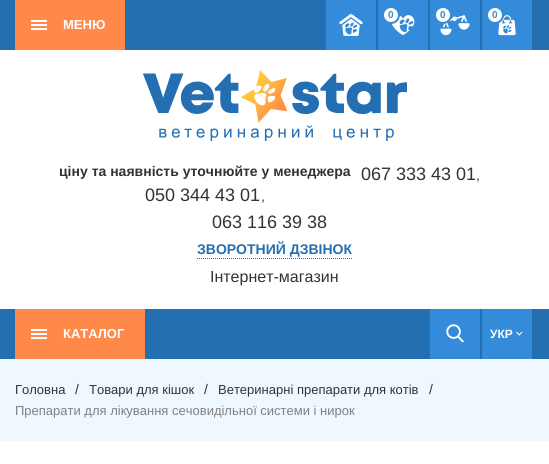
#include <cairo.h>
#include <math.h>
#include <stddef.h>

typedef struct { const char *family; double size; int italic, bold; unsigned color; } style_t;
static cairo_t *ctx;

static void ink(unsigned color) {
    cairo_set_source_rgb(ctx, (color >> 16) / 255.0, (color >> 8 & 255) / 255.0, (color & 255) / 255.0);
}

static void write(double x, double y, const char *s, const style_t *st) {
    cairo_select_font_face(ctx, st->family, st->italic ? CAIRO_FONT_SLANT_ITALIC : CAIRO_FONT_SLANT_NORMAL,
        st->bold ? CAIRO_FONT_WEIGHT_BOLD : CAIRO_FONT_WEIGHT_NORMAL);
    cairo_set_font_size(ctx, st->size);
    ink(st->color);
    cairo_move_to(ctx, x, y);
    cairo_show_text(ctx, s);
}

static void block(double x, double y, double w, double h, unsigned color) {
    ink(color);
    cairo_rectangle(ctx, x, y, w, h);
    cairo_fill(ctx);
}

static void paste(const char *path, double x, double y, double w, double h) {
    cairo_surface_t *image = cairo_image_surface_create_from_png(path);
    cairo_save(ctx);
    cairo_set_source_surface(ctx, image, x, y);
    cairo_rectangle(ctx, x, y, w, h);
    cairo_fill(ctx);
    cairo_restore(ctx);
    cairo_surface_destroy(image);
}

static const style_t s1 = {"Liberation Sans", 10, 0, 1, 0x338bd9};
static const style_t s2 = {"Liberation Sans", 13, 0, 1, 0xffffff};
static const style_t s3 = {"Liberation Sans", 14, 0, 1, 0x333333};
static const style_t s4 = {"Liberation Sans", 18, 0, 0, 0x333333};
static const style_t s5 = {"Liberation Sans", 14, 0, 0, 0x333333};
static const style_t s6 = {"Liberation Sans", 14, 0, 1, 0x246fb2};
static const style_t s7 = {"Liberation Sans", 16, 0, 0, 0x333333};
static const style_t s8 = {"Liberation Sans", 12, 0, 1, 0xffffff};
static const style_t s9 = {"Liberation Sans", 13, 0, 0, 0x333333};
static const style_t s10 = {"Liberation Sans", 13, 0, 0, 0x808080};

int main(void) {
    cairo_surface_t *surface = cairo_image_surface_create(CAIRO_FORMAT_RGB24, 549, 464);
    ctx = cairo_create(surface);
    cairo_font_options_t *options = cairo_font_options_create();
    cairo_font_options_set_hint_metrics(options, CAIRO_HINT_METRICS_OFF);
    cairo_font_options_set_hint_style(options, CAIRO_HINT_STYLE_NONE);
    cairo_set_font_options(ctx, options);
    cairo_set_miter_limit(ctx, 4);
    ink(0xffffff);
    cairo_paint(ctx);
    block(0, 0, 549, 50, 0x246fb2);
    block(326, 0, 50, 50, 0x338bd9);
    paste("pic1.png", 339, 14, 24, 22);
    block(378, 0, 50, 50, 0x338bd9);
    paste("pic2.png", 391, 15, 24, 21);
    ink(0xffffff);
    cairo_arc(ctx, 391, 15, 8, 0, 2 * M_PI);
    cairo_fill_preserve(ctx);
    ink(0x338bd9);
    cairo_stroke(ctx);
    write(388, 18, "0", &s1);
    block(430, 0, 50, 50, 0x338bd9);
    paste("pic3.png", 440, 15, 30, 21);
    ink(0xffffff);
    cairo_arc(ctx, 443, 15, 8, 0, 2 * M_PI);
    cairo_fill_preserve(ctx);
    ink(0x338bd9);
    cairo_stroke(ctx);
    write(440, 18, "0", &s1);
    block(482, 0, 50, 50, 0x338bd9);
    paste("pic4.png", 498, 15, 18, 21);
    ink(0xffffff);
    cairo_arc(ctx, 495, 15, 8, 0, 2 * M_PI);
    cairo_fill_preserve(ctx);
    ink(0x338bd9);
    cairo_stroke(ctx);
    write(492, 18, "0", &s1);
    block(15, 0, 110, 50, 0xff8949);
    block(31, 24, 16, 2, 0xffffff);
    block(31, 20, 16, 2, 0xffffff);
    block(31, 28, 16, 2, 0xffffff);
    write(63, 29, "МЕНЮ", &s2);
    paste("pic5.png", 143, 70, 264, 71);
    write(59, 176, "ціну та наявність уточнюйте у менеджера", &s3);
    write(145, 201, "050 344 43 01", &s4);
    write(261, 201, ",", &s5);
    write(361, 180, "067 333 43 01", &s4);
    write(476, 180, ",", &s5);
    write(212, 228, "063 116 39 38", &s4);
    cairo_new_path(ctx);
    cairo_move_to(ctx, 197, 258.5);
    cairo_line_to(ctx, 352, 258.5);
    ink(0x246fb2);
    cairo_set_line_width(ctx, 1);
    cairo_set_dash(ctx, (double[]){1, 1}, 2, 0);
    cairo_stroke(ctx);
    write(197, 254, "ЗВОРОТНИЙ ДЗВІНОК", &s6);
    write(210, 282, "Інтернет-магазин", &s7);
    block(0, 309, 549, 50, 0x246fb2);
    block(15, 309, 130, 50, 0xff8949);
    block(31, 333, 16, 2, 0xffffff);
    block(31, 329, 16, 2, 0xffffff);
    block(31, 337, 16, 2, 0xffffff);
    write(63, 338, "КАТАЛОГ", &s2);
    block(430, 309, 50, 50, 0x338bd9);
    paste("pic6.png", 446, 324, 18, 19);
    block(482, 309, 50, 50, 0x338bd9);
    write(490, 338, "УКР", &s8);
    paste("pic7.png", 516, 331, 7, 5);
    block(0, 359, 549, 82, 0xeff8ff);
    write(15, 394, "Головна", &s9);
    write(75, 394, "/", &s5);
    write(89, 394, "Товари для кішок", &s9);
    write(204, 394, "/", &s5);
    write(218, 394, "Ветеринарні препарати для котів", &s9);
    write(429, 394, "/", &s5);
    write(15, 415, "Препарати для лікування сечовидільної системи і нирок", &s10);
    cairo_surface_write_to_png(surface, "screenshot.png");
    cairo_font_options_destroy(options);
    cairo_destroy(ctx);
    cairo_surface_destroy(surface);
    return 0;
}
